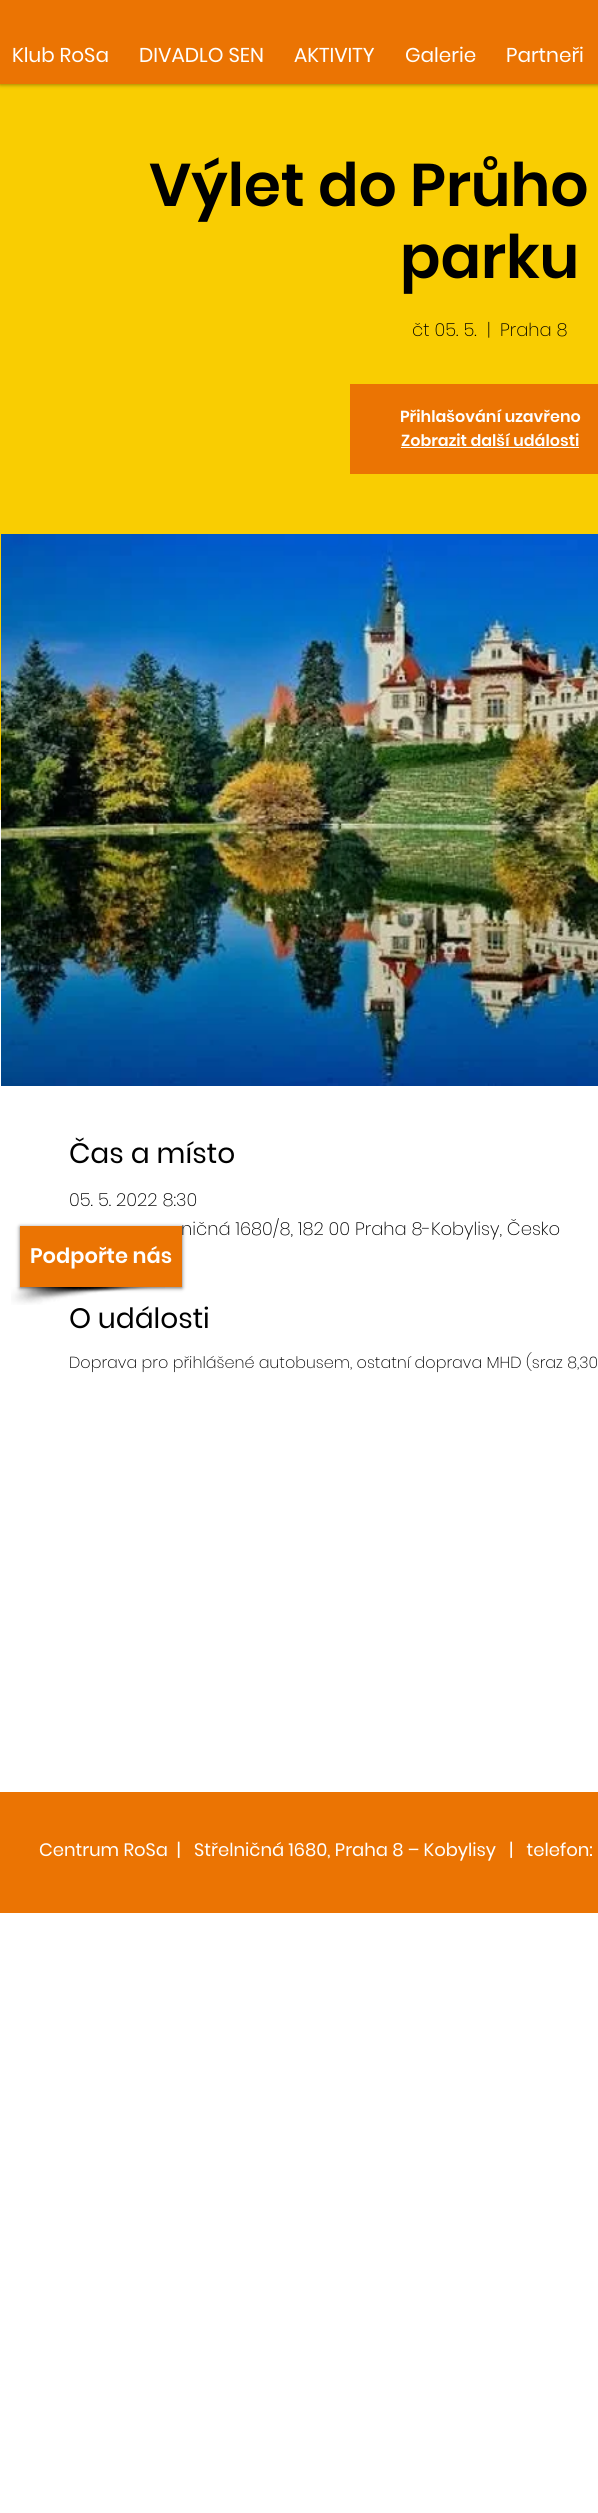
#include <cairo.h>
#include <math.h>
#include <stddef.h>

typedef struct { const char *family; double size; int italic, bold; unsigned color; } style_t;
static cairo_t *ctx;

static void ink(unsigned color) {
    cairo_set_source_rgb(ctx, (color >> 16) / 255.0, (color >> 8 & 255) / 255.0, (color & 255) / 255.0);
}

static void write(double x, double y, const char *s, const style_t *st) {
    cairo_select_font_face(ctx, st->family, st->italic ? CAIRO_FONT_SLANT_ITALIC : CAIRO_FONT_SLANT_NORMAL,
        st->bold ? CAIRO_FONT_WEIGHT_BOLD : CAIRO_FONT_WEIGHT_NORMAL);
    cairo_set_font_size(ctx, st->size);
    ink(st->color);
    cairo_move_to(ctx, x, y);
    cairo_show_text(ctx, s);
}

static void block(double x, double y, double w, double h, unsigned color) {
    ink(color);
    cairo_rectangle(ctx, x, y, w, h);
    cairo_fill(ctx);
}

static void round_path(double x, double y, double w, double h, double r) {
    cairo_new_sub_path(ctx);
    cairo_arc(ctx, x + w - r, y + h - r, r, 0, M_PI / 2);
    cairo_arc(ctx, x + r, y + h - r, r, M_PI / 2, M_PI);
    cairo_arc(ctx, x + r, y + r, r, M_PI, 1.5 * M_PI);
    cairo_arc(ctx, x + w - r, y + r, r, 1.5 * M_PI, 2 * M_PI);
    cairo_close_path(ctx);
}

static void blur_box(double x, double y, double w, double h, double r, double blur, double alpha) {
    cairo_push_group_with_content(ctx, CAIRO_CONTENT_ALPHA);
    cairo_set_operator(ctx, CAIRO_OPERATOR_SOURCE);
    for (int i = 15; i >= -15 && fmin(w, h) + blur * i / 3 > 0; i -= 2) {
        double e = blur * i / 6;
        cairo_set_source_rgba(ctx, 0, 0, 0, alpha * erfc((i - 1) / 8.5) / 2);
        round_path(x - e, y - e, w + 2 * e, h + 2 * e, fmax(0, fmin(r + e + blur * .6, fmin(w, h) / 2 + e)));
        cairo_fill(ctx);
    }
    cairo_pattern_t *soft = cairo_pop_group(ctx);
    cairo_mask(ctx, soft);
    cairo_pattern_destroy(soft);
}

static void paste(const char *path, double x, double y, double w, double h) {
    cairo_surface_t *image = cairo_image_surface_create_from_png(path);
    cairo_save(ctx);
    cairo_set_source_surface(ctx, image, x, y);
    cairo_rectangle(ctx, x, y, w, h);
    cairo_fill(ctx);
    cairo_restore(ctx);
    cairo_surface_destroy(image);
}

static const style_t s1 = {"Poppins", 20, 0, 0, 0xffffff};
static const style_t s2 = {"Poppins SemiBold", 60, 0, 0, 0x000000};
static const style_t s3 = {"Poppins ExtraLight", 18, 0, 0, 0x000000};
static const style_t s4 = {"Poppins SemiBold", 16, 0, 0, 0xffffff};
static const style_t s5 = {"Poppins", 28, 0, 0, 0x000000};
static const style_t s6 = {"Poppins ExtraLight", 16, 0, 0, 0x000000};
static const style_t s7 = {"Poppins SemiBold", 21, 0, 0, 0xffffff};
static const style_t s8 = {"Poppins", 18, 0, 0, 0xffffff};

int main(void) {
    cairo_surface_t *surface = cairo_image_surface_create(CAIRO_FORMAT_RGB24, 598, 2513);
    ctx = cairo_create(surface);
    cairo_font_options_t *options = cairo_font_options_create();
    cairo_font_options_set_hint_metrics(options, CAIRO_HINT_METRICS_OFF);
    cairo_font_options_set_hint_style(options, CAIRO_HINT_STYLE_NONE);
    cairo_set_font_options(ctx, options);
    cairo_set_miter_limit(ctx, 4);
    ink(0xffffff);
    cairo_paint(ctx);
    block(0, 84, 598, 726, 0xf9cd02);
    ink(0x000000);
    blur_box(0, 0, 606, 84, 0, 2.5, 0.5);
    block(0, 0, 598, 84, 0xeb7403);
    write(12, 62, "Klub RoSa", &s1);
    write(139, 62, "DIVADLO SEN", &s1);
    write(294, 62, "AKTIVITY", &s1);
    write(405, 62, "Galerie", &s1);
    write(506, 62, "Partneři", &s1);
    write(149, 206, "Výlet do Průho", &s2);
    write(400, 278, "parku", &s2);
    write(412, 336, "čt 05. 5.", &s3);
    write(487, 336, "|", &s3);
    write(500, 336, "Praha 8", &s3);
    block(350, 384, 248, 90, 0xeb7403);
    write(400, 422, "Přihlašování uzavřeno", &s4);
    write(401, 446, "Zobrazit další události", &s4);
    block(401, 447, 178, 1, 0xffffff);
    paste("pic1.png", 1, 534, 597, 552);
    write(69, 1163, "Čas a místo", &s5);
    write(69, 1206, "05. 5. 2022 8:30", &s3);
    write(181, 1235, "ničná 1680/8, 182 00 Praha 8-Kobylisy, Česko", &s3);
    write(69, 1328, "O události", &s5);
    write(69, 1368, "Doprava pro přihlášené autobusem, ostatní doprava MHD (sraz 8,30", &s6);
    paste("pic2.png", 11, 1287, 154, 18);
    ink(0x000000);
    blur_box(20, 1227, 162, 61, 0, 2, 0.6);
    block(20, 1226, 162, 61, 0xeb7403);
    write(30, 1263, "Podpořte nás", &s7);
    block(0, 1792, 598, 121, 0xeb7403);
    write(39, 1856, "Centrum RoSa  |   Střelničná 1680, Praha 8 – Kobylisy   |   telefon:", &s8);
    cairo_surface_write_to_png(surface, "screenshot.png");
    cairo_font_options_destroy(options);
    cairo_destroy(ctx);
    cairo_surface_destroy(surface);
    return 0;
}
